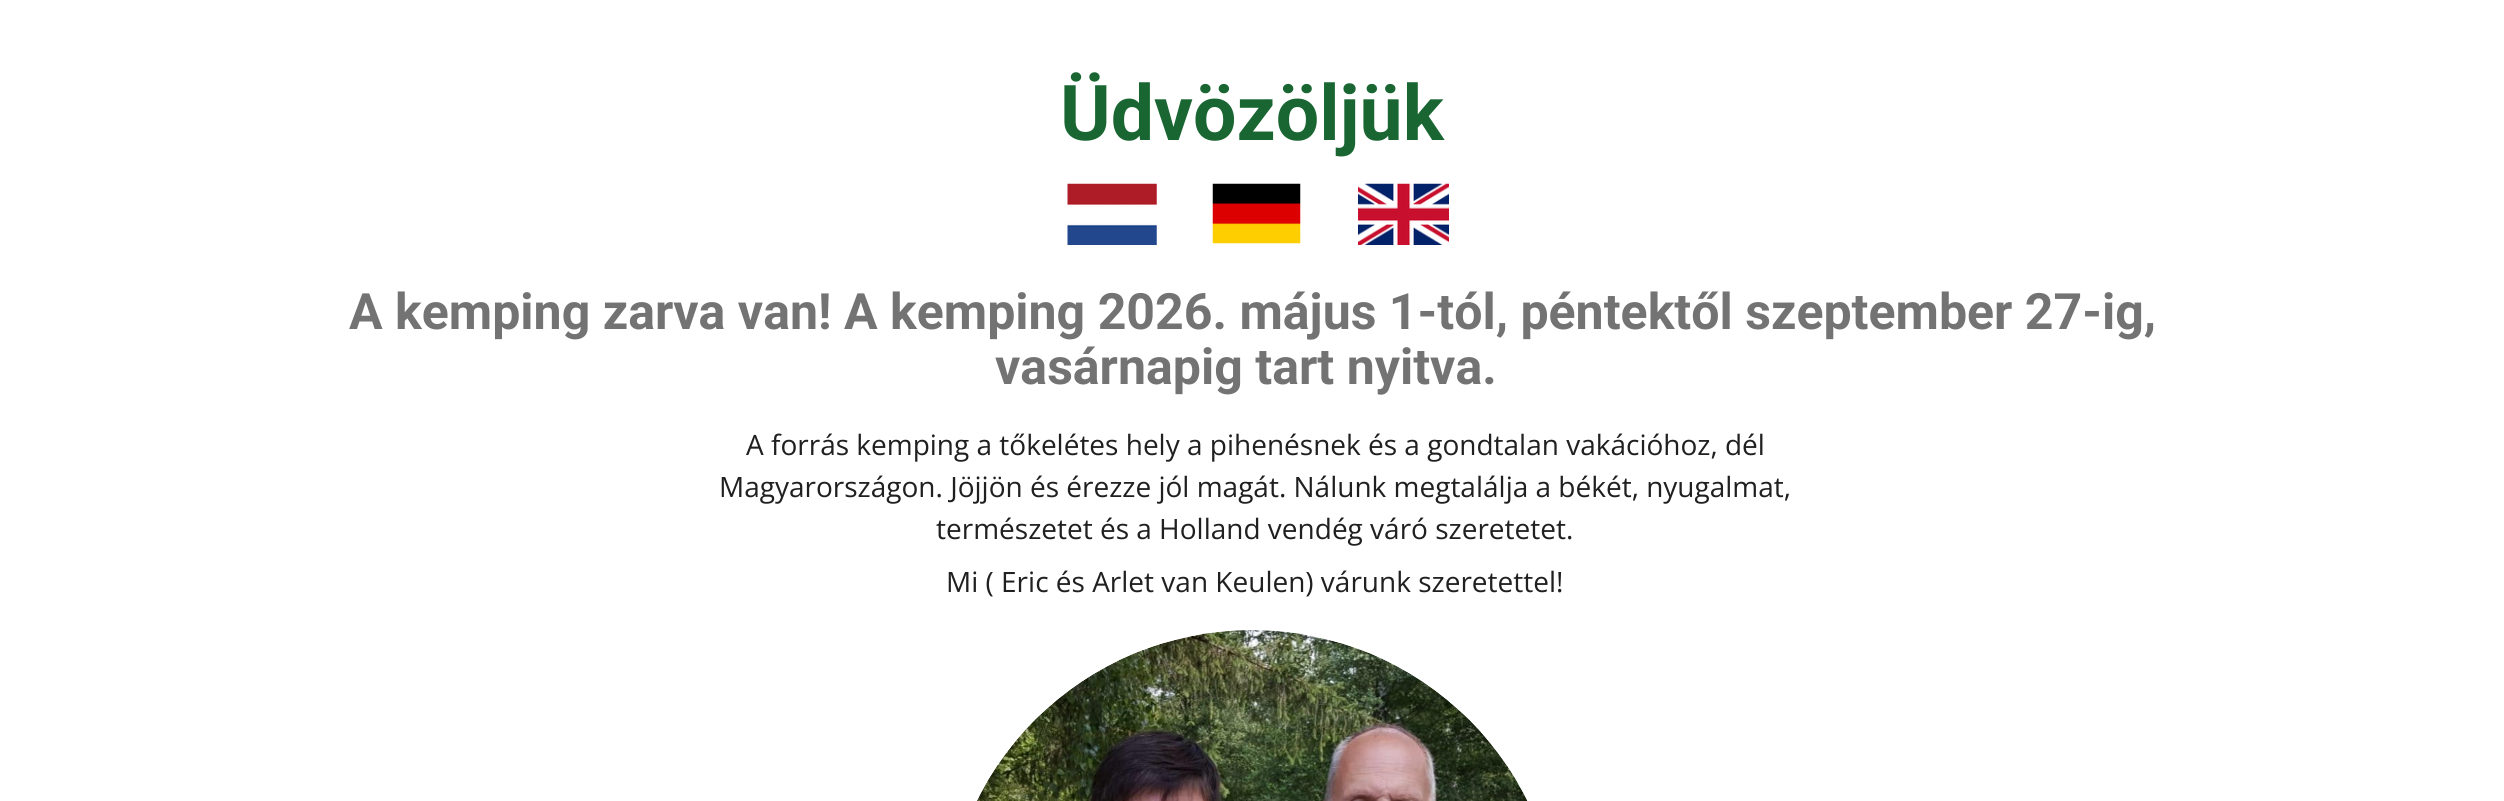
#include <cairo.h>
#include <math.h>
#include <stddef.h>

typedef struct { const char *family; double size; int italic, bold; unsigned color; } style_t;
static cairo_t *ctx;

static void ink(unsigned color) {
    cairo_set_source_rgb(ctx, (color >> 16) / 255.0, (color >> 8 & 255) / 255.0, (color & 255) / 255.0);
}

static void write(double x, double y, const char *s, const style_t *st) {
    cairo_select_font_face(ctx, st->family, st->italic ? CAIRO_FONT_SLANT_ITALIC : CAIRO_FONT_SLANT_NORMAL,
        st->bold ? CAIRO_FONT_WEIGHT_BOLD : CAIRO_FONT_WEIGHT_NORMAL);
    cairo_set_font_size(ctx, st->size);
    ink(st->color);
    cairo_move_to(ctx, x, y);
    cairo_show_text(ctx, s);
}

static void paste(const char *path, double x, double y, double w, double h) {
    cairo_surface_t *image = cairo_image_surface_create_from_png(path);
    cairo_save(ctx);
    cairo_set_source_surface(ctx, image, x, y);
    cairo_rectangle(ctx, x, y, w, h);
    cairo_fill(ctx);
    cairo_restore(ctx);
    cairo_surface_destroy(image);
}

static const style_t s1 = {"Roboto", 77, 0, 1, 0x196632};
static const style_t s2 = {"Roboto", 50.05, 0, 1, 0x737373};
static const style_t s3 = {"Open Sans", 28, 0, 0, 0x202020};

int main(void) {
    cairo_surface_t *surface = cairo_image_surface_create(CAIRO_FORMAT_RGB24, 2504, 801);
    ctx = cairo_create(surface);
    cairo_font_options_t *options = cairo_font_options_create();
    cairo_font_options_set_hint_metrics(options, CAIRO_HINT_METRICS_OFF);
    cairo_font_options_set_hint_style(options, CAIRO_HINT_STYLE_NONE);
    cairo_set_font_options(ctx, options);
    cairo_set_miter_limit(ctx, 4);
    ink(0xffffff);
    cairo_paint(ctx);
    write(1060, 140, "Üdvözöljük", &s1);
    paste("pic1.png", 1067, 183, 90, 62);
    paste("pic2.png", 1212, 183, 89, 61);
    paste("pic3.png", 1358, 183, 91, 62);
    write(349, 329, "A kemping zarva van! A kemping 2026. május 1-tól, péntektől szeptember 27-ig,", &s2);
    write(995, 384, "vasárnapig tart nyitva.", &s2);
    write(746, 455, "A forrás kemping a tőkelétes hely a pihenésnek és a gondtalan vakációhoz, dél", &s3);
    write(719, 497, "Magyarországon. Jöjjön és érezze jól magát. Nálunk megtalálja a békét, nyugalmat,", &s3);
    write(936, 539, "természetet és a Holland vendég váró szeretetet.", &s3);
    write(946, 592, "Mi ( Eric és Arlet van Keulen) várunk szeretettel!", &s3);
    paste("pic4.png", 977, 630, 551, 171);
    cairo_surface_write_to_png(surface, "screenshot.png");
    cairo_font_options_destroy(options);
    cairo_destroy(ctx);
    cairo_surface_destroy(surface);
    return 0;
}
